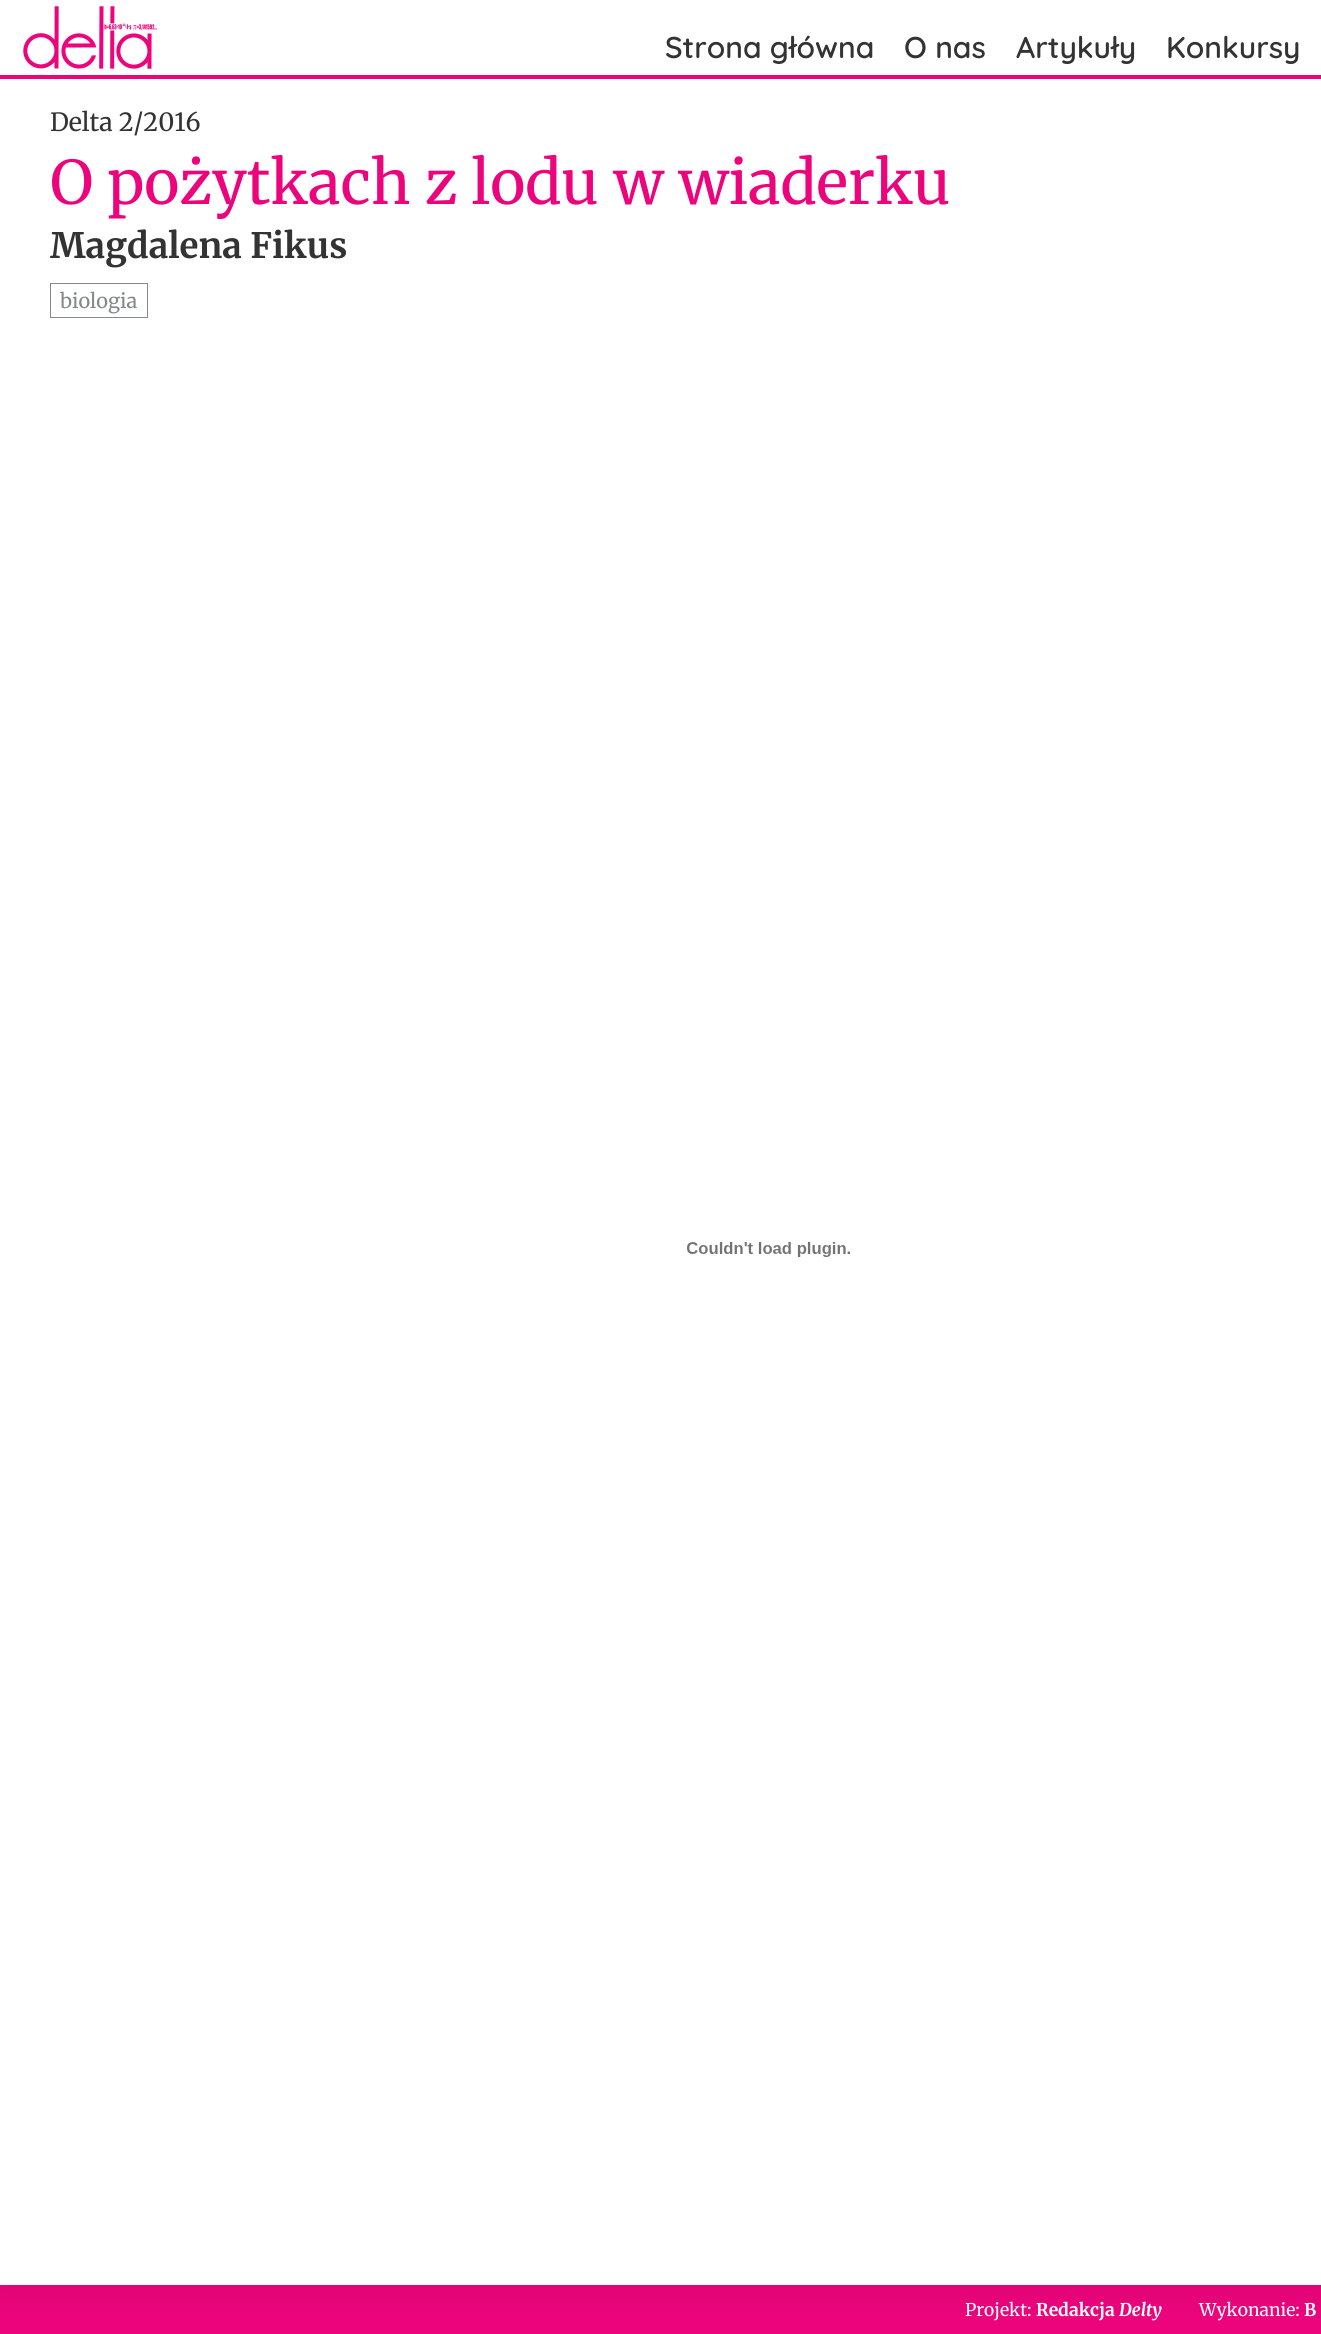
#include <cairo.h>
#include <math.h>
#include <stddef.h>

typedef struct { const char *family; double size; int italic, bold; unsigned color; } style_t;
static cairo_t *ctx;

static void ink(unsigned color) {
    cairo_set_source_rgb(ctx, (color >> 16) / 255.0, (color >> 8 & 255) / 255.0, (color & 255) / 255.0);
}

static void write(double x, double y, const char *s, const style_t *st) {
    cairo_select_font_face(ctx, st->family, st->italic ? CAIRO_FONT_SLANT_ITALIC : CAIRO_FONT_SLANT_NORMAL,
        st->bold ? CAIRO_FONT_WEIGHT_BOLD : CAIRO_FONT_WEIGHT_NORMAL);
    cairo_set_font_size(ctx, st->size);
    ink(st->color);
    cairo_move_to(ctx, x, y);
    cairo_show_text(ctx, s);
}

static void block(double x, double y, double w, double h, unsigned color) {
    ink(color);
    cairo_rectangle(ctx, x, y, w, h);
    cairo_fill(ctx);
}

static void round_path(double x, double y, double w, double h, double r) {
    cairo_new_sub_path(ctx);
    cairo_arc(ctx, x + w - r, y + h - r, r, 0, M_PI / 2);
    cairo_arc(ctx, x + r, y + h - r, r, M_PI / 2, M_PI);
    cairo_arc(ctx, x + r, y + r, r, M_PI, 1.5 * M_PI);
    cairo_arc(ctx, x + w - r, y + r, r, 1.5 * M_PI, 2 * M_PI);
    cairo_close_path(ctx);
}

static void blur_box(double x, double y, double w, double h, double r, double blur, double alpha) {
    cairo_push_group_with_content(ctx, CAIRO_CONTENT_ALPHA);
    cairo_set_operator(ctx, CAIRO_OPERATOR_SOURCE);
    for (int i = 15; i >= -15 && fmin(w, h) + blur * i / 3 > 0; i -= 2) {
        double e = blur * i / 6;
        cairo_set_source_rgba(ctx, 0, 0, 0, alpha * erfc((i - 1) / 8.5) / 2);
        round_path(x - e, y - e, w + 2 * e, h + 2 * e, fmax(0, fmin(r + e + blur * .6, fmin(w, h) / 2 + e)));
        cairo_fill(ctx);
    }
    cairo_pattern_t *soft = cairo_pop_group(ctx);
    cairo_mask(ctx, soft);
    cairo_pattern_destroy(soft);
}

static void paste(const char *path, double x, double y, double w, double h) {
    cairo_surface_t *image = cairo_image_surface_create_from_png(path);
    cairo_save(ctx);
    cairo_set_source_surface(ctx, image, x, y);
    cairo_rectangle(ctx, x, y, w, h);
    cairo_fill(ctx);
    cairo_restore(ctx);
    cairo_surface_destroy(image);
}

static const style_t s1 = {"Quicksand SemiBold", 30, 0, 0, 0x333333};
static const style_t s2 = {"Merriweather", 25, 0, 0, 0x333333};
static const style_t s3 = {"Merriweather", 60, 0, 0, 0xec047c};
static const style_t s4 = {"Merriweather", 35, 0, 1, 0x333333};
static const style_t s5 = {"Merriweather", 20, 0, 0, 0x85888c};
static const style_t s6 = {"Merriweather", 17.5, 0, 0, 0xffffff};
static const style_t s7 = {"Merriweather", 17.5, 0, 1, 0xffffff};
static const style_t s8 = {"Merriweather", 17.5, 1, 1, 0xffffff};

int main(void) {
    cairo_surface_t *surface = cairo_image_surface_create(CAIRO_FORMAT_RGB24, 1321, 2334);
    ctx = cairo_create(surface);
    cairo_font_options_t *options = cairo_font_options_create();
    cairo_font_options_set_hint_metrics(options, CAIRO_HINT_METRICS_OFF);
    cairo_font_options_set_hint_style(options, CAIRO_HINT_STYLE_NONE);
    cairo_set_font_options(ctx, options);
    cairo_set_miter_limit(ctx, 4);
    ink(0xec047c);
    cairo_paint(ctx);
    ink(0x000000);
    blur_box(0, 79, 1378, 2206, 0, 19, 0.1);
    block(0, 0, 1321, 75, 0xffffff);
    block(0, 75, 1321, 4, 0xec047c);
    paste("pic1.png", 23, 6, 134, 63);
    write(665, 58, "Strona główna", &s1);
    write(904, 58, "O nas", &s1);
    write(1016, 58, "Artykuły", &s1);
    write(1166, 58, "Konkursy", &s1);
    block(0, 79, 1321, 2206, 0xffffff);
    write(50, 131, "Delta 2/2016", &s2);
    write(50, 204, "O pożytkach z lodu w wiaderku", &s3);
    write(50, 258, "Magdalena Fikus", &s4);
    cairo_rectangle(ctx, 50.5, 283.5, 97, 34);
    ink(0x85888c);
    cairo_set_line_width(ctx, 1);
    cairo_stroke(ctx);
    write(60, 308, "biologia", &s5);
    paste("pic2.png", 687, 1242, 163, 15);
    write(965, 2316, "Projekt:", &s6);
    write(1036, 2316, "Redakcja", &s7);
    write(1119, 2316, "Delty", &s8);
    write(1199, 2316, "Wykonanie:", &s6);
    write(1304, 2316, "B", &s7);
    cairo_surface_write_to_png(surface, "screenshot.png");
    cairo_font_options_destroy(options);
    cairo_destroy(ctx);
    cairo_surface_destroy(surface);
    return 0;
}
